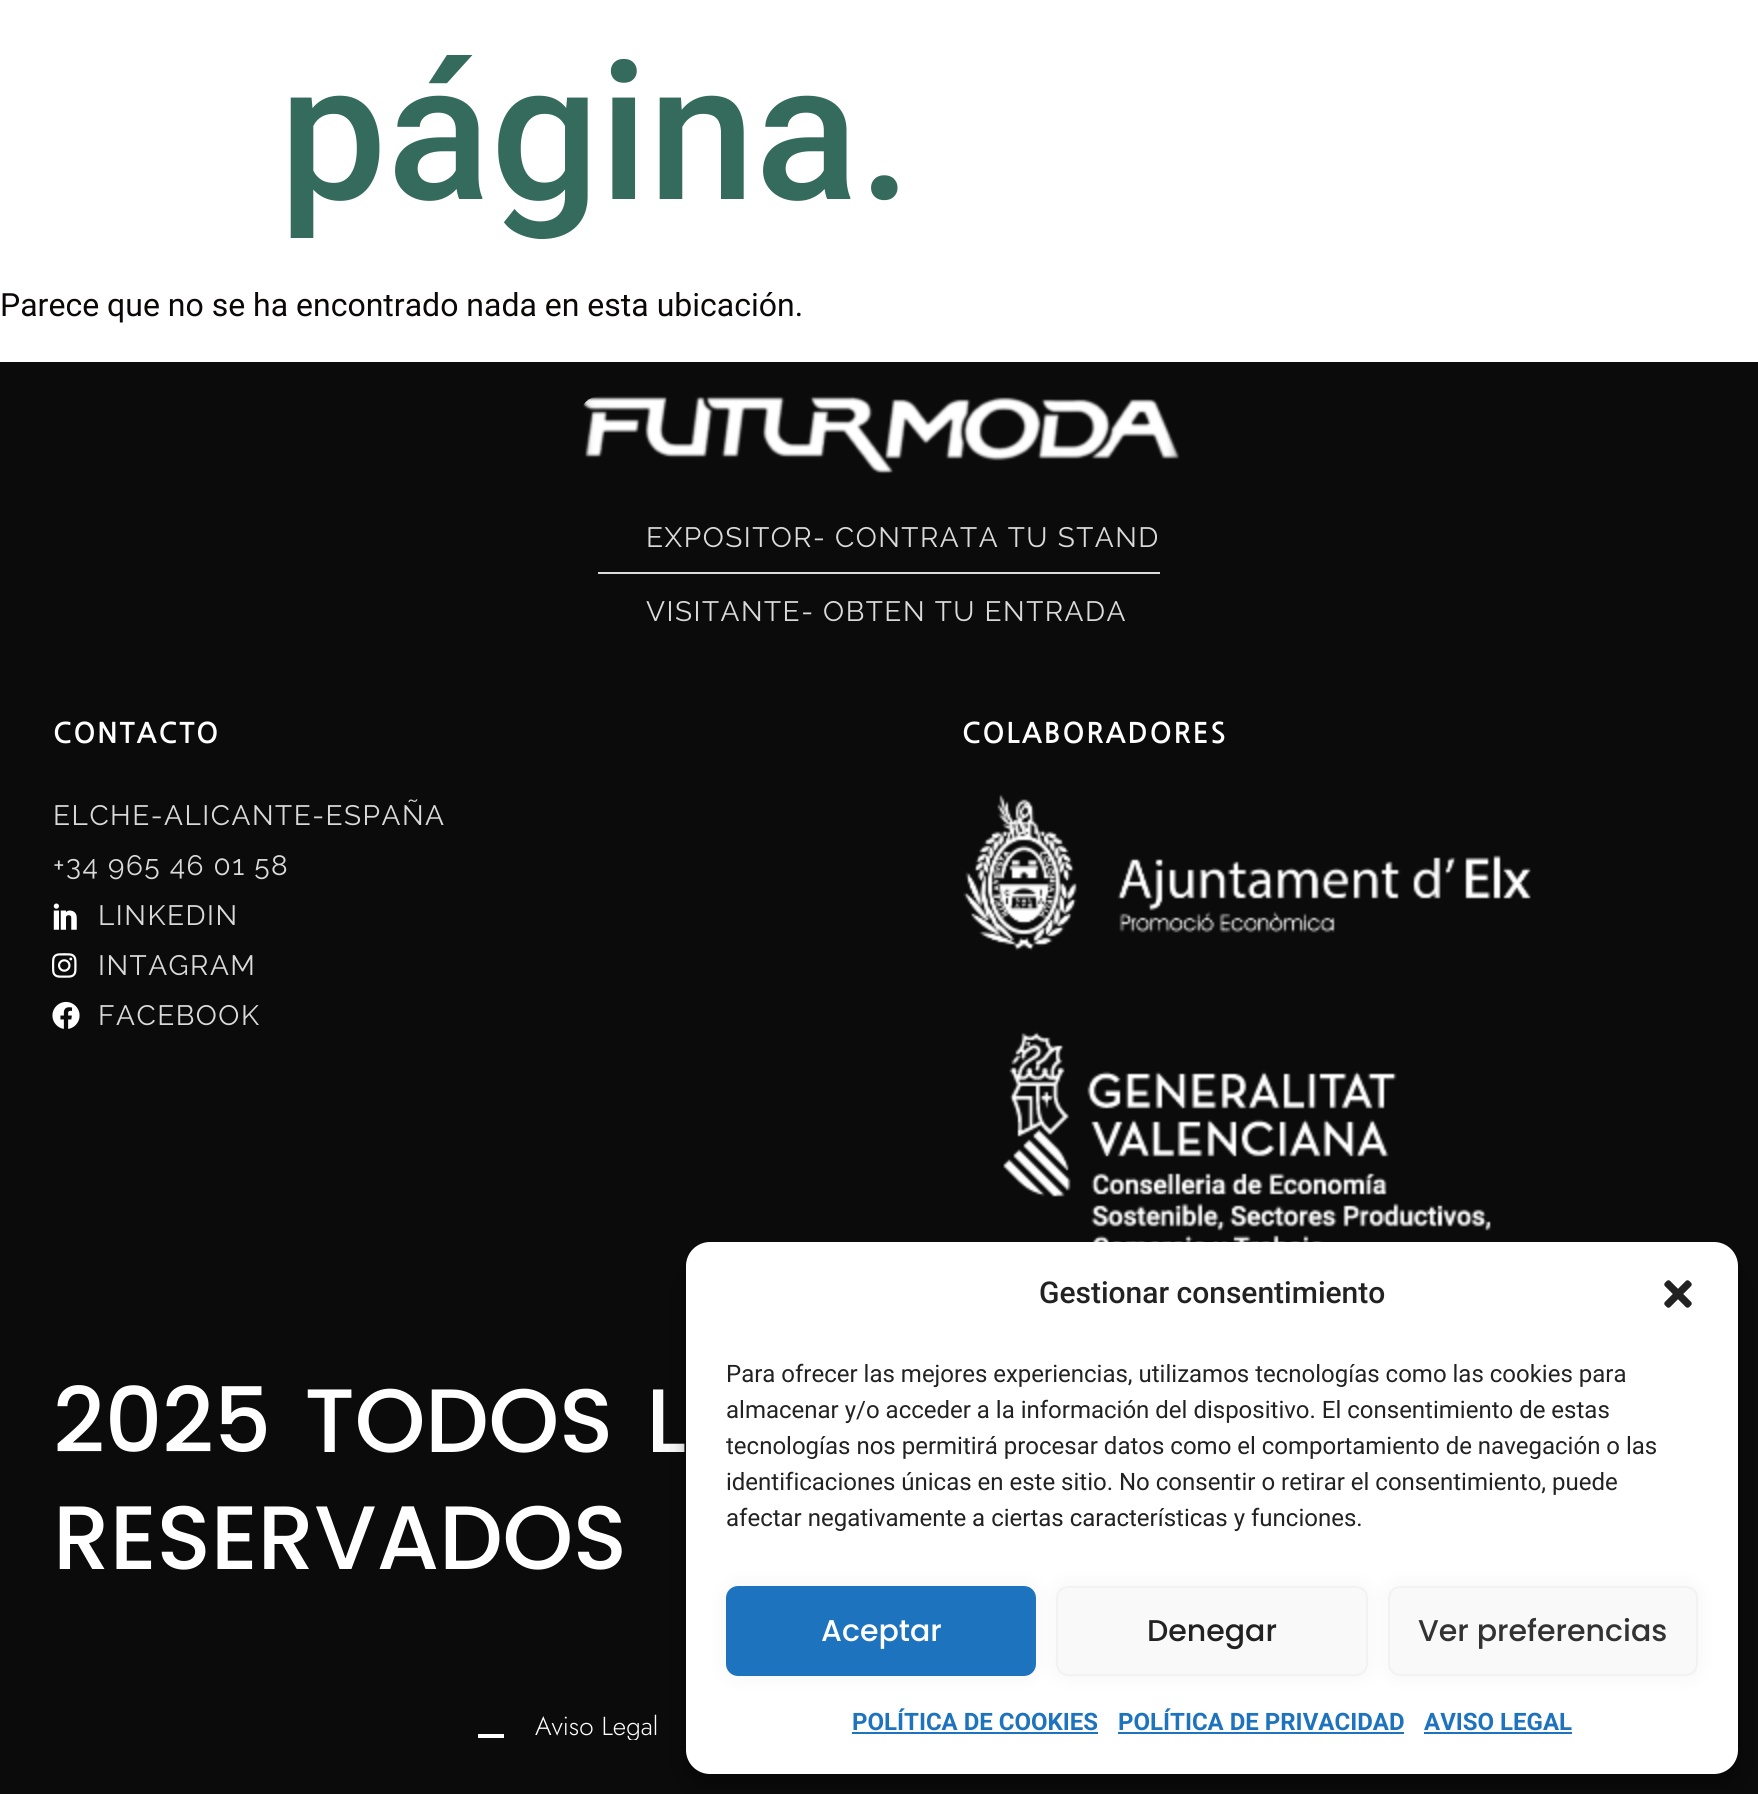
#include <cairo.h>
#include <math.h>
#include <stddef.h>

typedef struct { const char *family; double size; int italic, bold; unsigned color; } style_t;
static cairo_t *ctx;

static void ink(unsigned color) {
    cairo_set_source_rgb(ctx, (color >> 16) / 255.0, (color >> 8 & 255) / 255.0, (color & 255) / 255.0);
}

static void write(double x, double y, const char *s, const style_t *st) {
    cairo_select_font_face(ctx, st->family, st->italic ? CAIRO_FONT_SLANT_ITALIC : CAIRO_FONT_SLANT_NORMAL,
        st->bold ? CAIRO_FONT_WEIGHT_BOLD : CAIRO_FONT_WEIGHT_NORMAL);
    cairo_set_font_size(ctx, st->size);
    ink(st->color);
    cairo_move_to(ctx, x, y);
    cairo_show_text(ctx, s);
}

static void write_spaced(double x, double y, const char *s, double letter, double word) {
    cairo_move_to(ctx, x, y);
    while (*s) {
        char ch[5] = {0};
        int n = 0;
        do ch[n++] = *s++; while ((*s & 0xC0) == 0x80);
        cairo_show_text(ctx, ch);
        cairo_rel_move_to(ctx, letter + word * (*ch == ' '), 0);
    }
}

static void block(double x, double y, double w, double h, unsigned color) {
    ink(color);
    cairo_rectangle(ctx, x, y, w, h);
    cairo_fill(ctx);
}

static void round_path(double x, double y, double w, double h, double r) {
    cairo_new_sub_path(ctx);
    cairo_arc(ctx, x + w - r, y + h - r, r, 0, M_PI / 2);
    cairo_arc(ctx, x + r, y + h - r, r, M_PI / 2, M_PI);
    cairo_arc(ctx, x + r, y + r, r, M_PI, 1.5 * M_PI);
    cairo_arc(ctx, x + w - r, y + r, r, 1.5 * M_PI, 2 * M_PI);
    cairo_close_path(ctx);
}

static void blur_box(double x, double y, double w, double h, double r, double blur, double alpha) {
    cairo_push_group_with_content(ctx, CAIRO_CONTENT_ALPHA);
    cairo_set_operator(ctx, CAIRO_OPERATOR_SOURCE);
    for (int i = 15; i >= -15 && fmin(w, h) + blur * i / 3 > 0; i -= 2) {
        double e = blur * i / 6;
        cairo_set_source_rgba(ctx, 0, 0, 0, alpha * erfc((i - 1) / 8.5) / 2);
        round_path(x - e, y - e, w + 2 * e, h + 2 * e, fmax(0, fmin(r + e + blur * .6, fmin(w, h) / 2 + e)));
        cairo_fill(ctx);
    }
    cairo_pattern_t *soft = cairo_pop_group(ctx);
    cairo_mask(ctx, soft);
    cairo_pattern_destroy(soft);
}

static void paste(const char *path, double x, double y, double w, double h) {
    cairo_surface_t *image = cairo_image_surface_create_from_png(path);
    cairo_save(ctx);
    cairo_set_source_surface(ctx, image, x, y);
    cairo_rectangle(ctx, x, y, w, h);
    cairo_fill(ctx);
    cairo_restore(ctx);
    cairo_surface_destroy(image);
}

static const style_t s1 = {"Roboto Medium", 192, 0, 0, 0x356b5c};
static const style_t s2 = {"Roboto", 32, 0, 0, 0x0d0808};
static const style_t s3 = {"Jost Light", 26, 0, 0, 0xffffff};
static const style_t s4 = {"Roboto Medium", 30, 0, 0, 0x222222};
static const style_t s5 = {"Roboto", 24, 0, 0, 0x222222};
static const style_t s6 = {"Poppins Medium", 30, 0, 0, 0xffffff};
static const style_t s7 = {"Poppins Medium", 30, 0, 0, 0x222222};
static const style_t s8 = {"Poppins Medium", 30, 0, 0, 0x333333};
static const style_t s9 = {"Roboto", 24, 0, 1, 0x1e73be};

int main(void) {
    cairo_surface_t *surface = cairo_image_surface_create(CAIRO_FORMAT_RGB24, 1758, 1794);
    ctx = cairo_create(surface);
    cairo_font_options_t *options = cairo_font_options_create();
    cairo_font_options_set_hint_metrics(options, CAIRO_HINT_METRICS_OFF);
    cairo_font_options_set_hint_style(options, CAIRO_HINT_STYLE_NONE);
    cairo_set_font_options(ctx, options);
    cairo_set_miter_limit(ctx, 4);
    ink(0xffffff);
    cairo_paint(ctx);
    write(279, 199, "página.", &s1);
    write(0, 316, "Parece que no se ha encontrado nada en esta ubicación.", &s2);
    block(0, 362, 1758, 1432, 0x0b0b0b);
    paste("pic1.png", 583, 396, 597, 78);
    cairo_select_font_face(ctx, "Raleway", CAIRO_FONT_SLANT_NORMAL, CAIRO_FONT_WEIGHT_NORMAL);
    cairo_set_font_size(ctx, 28);
    ink(0xdadada);
    write_spaced(646, 547, "EXPOSITOR- CONTRATA TU STAND", 1.5, 0);
    block(598, 572, 562, 2, 0xdddddd);
    ink(0xdadada);
    write_spaced(646, 621, "VISITANTE- OBTEN TU ENTRADA", 1.5, 0);
    cairo_select_font_face(ctx, "NanumGothic", CAIRO_FONT_SLANT_NORMAL, CAIRO_FONT_WEIGHT_BOLD);
    ink(0xffffff);
    write_spaced(53, 743, "CONTACTO", 1.75, 0);
    cairo_select_font_face(ctx, "Raleway", CAIRO_FONT_SLANT_NORMAL, CAIRO_FONT_WEIGHT_NORMAL);
    ink(0xdadada);
    write_spaced(53, 825, "ELCHE-ALICANTE-ESPAÑA", 1.5, 0);
    write_spaced(53, 875, "+34 965 46 01 58", 1.5, 0);
    paste("pic2.png", 53, 903, 24, 27);
    write_spaced(98, 925, "LINKEDIN", 1.5, 0);
    paste("pic3.png", 52, 953, 25, 25);
    write_spaced(98, 975, "INTAGRAM", 1.5, 0);
    paste("pic4.png", 52, 1001, 28, 28);
    write_spaced(98, 1025, "FACEBOOK", 1.5, 0);
    cairo_select_font_face(ctx, "NanumGothic", CAIRO_FONT_SLANT_NORMAL, CAIRO_FONT_WEIGHT_BOLD);
    ink(0xffffff);
    write_spaced(962, 743, "COLABORADORES", 1.75, 0);
    paste("pic5.png", 963, 794, 568, 157);
    paste("pic6.png", 1003, 1031, 488, 211);
    cairo_select_font_face(ctx, "Poppins Medium", CAIRO_FONT_SLANT_NORMAL, CAIRO_FONT_WEIGHT_NORMAL);
    cairo_set_font_size(ctx, 90);
    write_spaced(53, 1452, "2025 TODOS L", -0.25, 10);
    write_spaced(53, 1569, "RESERVADOS", -0.25, 0);
    block(478, 1734, 26, 4, 0xffffff);
    cairo_save(ctx);
    cairo_rectangle(ctx, 52, 1714, 1654, 26);
    cairo_clip(ctx);
    write(535, 1735, "Aviso Legal", &s3);
    cairo_restore(ctx);
    ink(0x000000);
    blur_box(686, 1254, 1052, 532, 24, 6, 0.23);
    blur_box(686, 1262, 1052, 532, 24, 20, 0.19);
    ink(0xffffff);
    round_path(686, 1242, 1052, 532, 24);
    cairo_fill(ctx);
    write(1039, 1303, "Gestionar consentimiento", &s4);
    paste("pic7.png", 1664, 1280, 28, 28);
    write(726, 1382, "Para ofrecer las mejores experiencias, utilizamos tecnologías como las cookies para", &s5);
    write(726, 1418, "almacenar y/o acceder a la información del dispositivo. El consentimiento de estas", &s5);
    write(726, 1454, "tecnologías nos permitirá procesar datos como el comportamiento de navegación o las", &s5);
    write(726, 1490, "identificaciones únicas en este sitio. No consentir o retirar el consentimiento, puede", &s5);
    write(726, 1526, "afectar negativamente a ciertas características y funciones.", &s5);
    ink(0xf0eaea);
    blur_box(726, 1586, 310, 90, 12, 10, 0.5);
    ink(0x1e73be);
    round_path(727, 1587, 308, 88, 11);
    cairo_fill_preserve(ctx);
    cairo_stroke(ctx);
    write(821, 1641, "Aceptar", &s6);
    ink(0xf0eaea);
    blur_box(1056, 1586, 312, 90, 12, 10, 0.5);
    ink(0xf9f9f9);
    round_path(1057, 1587, 310, 88, 11);
    cairo_fill_preserve(ctx);
    ink(0xf2f2f2);
    cairo_stroke(ctx);
    write(1147, 1641, "Denegar", &s7);
    ink(0xf0eaea);
    blur_box(1388, 1586, 310, 90, 12, 10, 0.5);
    ink(0xf9f9f9);
    round_path(1389, 1587, 308, 88, 11);
    cairo_fill_preserve(ctx);
    ink(0xf2f2f2);
    cairo_stroke(ctx);
    write(1418, 1641, "Ver preferencias", &s8);
    write(852, 1730, "POLÍTICA DE COOKIES", &s9);
    block(852, 1732, 246, 2, 0x1e73be);
    write(1118, 1730, "POLÍTICA DE PRIVACIDAD", &s9);
    block(1118, 1732, 286, 2, 0x1e73be);
    write(1424, 1730, "AVISO LEGAL", &s9);
    block(1424, 1732, 148, 2, 0x1e73be);
    cairo_surface_write_to_png(surface, "screenshot.png");
    cairo_font_options_destroy(options);
    cairo_destroy(ctx);
    cairo_surface_destroy(surface);
    return 0;
}
